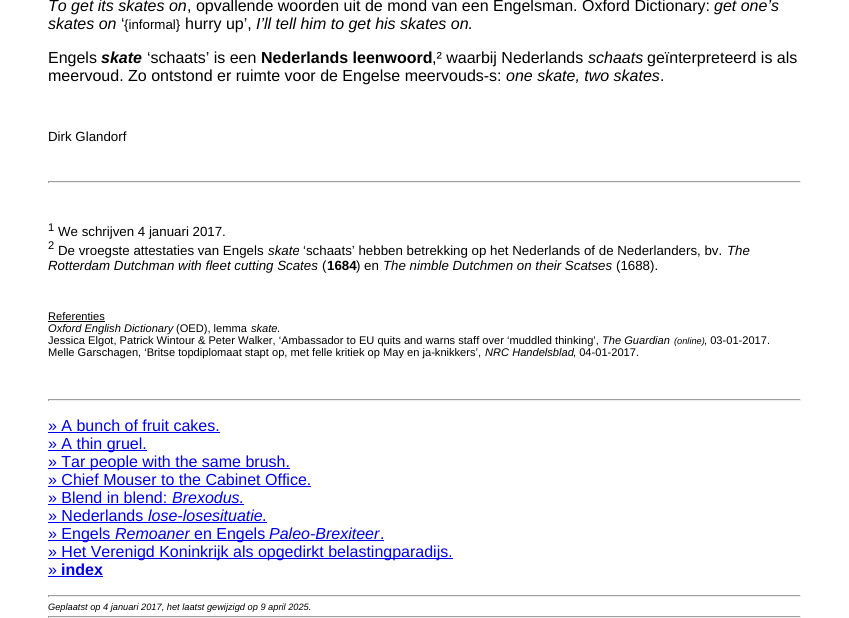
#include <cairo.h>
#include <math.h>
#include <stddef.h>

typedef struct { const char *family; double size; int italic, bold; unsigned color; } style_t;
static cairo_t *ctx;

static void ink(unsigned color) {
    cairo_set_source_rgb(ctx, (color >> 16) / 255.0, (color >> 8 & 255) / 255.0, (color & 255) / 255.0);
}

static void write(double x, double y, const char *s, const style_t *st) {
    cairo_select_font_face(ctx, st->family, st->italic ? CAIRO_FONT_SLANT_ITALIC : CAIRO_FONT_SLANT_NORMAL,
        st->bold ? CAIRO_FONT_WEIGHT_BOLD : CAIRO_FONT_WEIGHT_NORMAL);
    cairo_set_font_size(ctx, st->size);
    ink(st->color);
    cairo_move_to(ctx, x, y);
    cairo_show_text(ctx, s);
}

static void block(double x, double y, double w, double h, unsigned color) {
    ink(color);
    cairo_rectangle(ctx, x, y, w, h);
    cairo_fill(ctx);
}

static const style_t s1 = {"Liberation Sans", 16, 1, 0, 0x000000};
static const style_t s2 = {"Liberation Sans", 16, 0, 0, 0x000000};
static const style_t s3 = {"Liberation Sans", 13.3, 0, 0, 0x000000};
static const style_t s4 = {"Liberation Sans", 16, 1, 1, 0x000000};
static const style_t s5 = {"Liberation Sans", 16, 0, 1, 0x000000};
static const style_t s6 = {"Liberation Sans", 11.1, 0, 0, 0x000000};
static const style_t s7 = {"Liberation Sans", 13.3, 1, 0, 0x000000};
static const style_t s8 = {"Liberation Sans", 13.3, 0, 1, 0x000000};
static const style_t s9 = {"Liberation Sans", 11.1, 1, 0, 0x000000};
static const style_t s10 = {"Liberation Sans", 9.25, 1, 0, 0x000000};
static const style_t s11 = {"Liberation Sans", 16, 0, 0, 0x0000ee};
static const style_t s12 = {"Liberation Sans", 16, 1, 0, 0x0000ee};
static const style_t s13 = {"Liberation Sans", 16, 0, 1, 0x0000ee};

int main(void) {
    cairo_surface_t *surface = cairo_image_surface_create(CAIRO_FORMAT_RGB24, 849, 618);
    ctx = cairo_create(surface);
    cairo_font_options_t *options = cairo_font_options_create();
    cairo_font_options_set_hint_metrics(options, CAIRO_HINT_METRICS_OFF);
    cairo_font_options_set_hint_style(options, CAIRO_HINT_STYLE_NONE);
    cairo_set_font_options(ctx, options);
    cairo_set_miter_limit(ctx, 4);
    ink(0xffffff);
    cairo_paint(ctx);
    write(48, 11, "To get its skates on", &s1);
    write(187, 11, ", opvallende woorden uit de mond van een Engelsman. Oxford Dictionary:", &s2);
    write(714, 11, "get one’s", &s1);
    write(48, 29, "skates on", &s1);
    write(121, 29, "‘", &s2);
    write(124, 29, "{informal}", &s3);
    write(185, 29, "hurry up’,", &s2);
    write(256, 29, "I’ll tell him to get his skates on.", &s1);
    write(48, 63, "Engels", &s2);
    write(101, 63, "skate", &s4);
    write(147, 63, "‘schaats’ is een", &s2);
    write(261, 63, "Nederlands leenwoord", &s5);
    write(432, 63, ",² waarbij Nederlands", &s2);
    write(588, 63, "schaats", &s1);
    write(647, 63, "geïnterpreteerd is als", &s2);
    write(48, 81, "meervoud. Zo ontstond er ruimte voor de Engelse meervouds-s:", &s2);
    write(506, 81, "one skate, two skates", &s1);
    write(660, 81, ".", &s2);
    write(48, 141, "Dirk Glandorf", &s3);
    block(48, 181, 753, 1, 0x9f9f9f);
    block(800, 181, 1, 2, 0xeeeeee);
    block(48, 182, 753, 1, 0xeeeeee);
    block(48, 181, 1, 2, 0x9f9f9f);
    write(48, 231, "1", &s6);
    write(58, 236, "We schrijven 4 januari 2017.", &s3);
    write(48, 249, "2", &s6);
    write(58, 255, "De vroegste attestaties van Engels", &s3);
    write(268, 255, "skate", &s7);
    write(303, 255, "‘schaats’ hebben betrekking op het Nederlands of de Nederlanders, bv.", &s3);
    write(727, 255, "The", &s7);
    write(48, 270, "Rotterdam Dutchman with fleet cutting Scates", &s7);
    write(322, 270, "(", &s3);
    write(327, 270, "1684", &s8);
    write(356, 270, ") en", &s3);
    write(383, 270, "The nimble Dutchmen on their Scatses", &s7);
    write(616, 270, "(1688).", &s3);
    write(48, 320, "Referenties", &s6);
    block(48, 321, 57, 1, 0x000000);
    write(48, 332, "Oxford English Dictionary", &s9);
    write(176, 332, "(OED), lemma", &s6);
    write(251, 332, "skate", &s9);
    write(277, 332, ".", &s6);
    write(48, 344, "Jessica Elgot, Patrick Wintour & Peter Walker, ‘Ambassador to EU quits and warns staff over ‘muddled thinking’,", &s6);
    write(602, 344, "The Guardian", &s9);
    write(674, 344, "(online)", &s10);
    write(704, 344, ", 03-01-2017.", &s6);
    write(48, 356, "Melle Garschagen, ‘Britse topdiplomaat stapt op, met felle kritiek op May en ja-knikkers’,", &s6);
    write(485, 356, "NRC Handelsblad", &s9);
    write(573, 356, ", 04-01-2017.", &s6);
    block(48, 399, 753, 1, 0x9f9f9f);
    block(800, 399, 1, 2, 0xeeeeee);
    block(48, 400, 753, 1, 0xeeeeee);
    block(48, 399, 1, 2, 0x9f9f9f);
    write(48, 431, "» A bunch of fruit cakes.", &s11);
    block(48, 432, 172, 1, 0x0000ee);
    block(48, 450, 99, 1, 0x0000ee);
    write(48, 449, "» A thin gruel.", &s11);
    block(48, 468, 242, 1, 0x0000ee);
    write(48, 467, "» Tar people with the same brush.", &s11);
    write(48, 485, "» Chief Mouser to the Cabinet Office.", &s11);
    block(48, 486, 263, 1, 0x0000ee);
    write(48, 503, "» Blend in blend:", &s11);
    write(172, 503, "Brexodus", &s12);
    write(239, 503, ".", &s11);
    block(48, 504, 196, 1, 0x0000ee);
    write(48, 521, "» Nederlands", &s11);
    write(148, 521, "lose-losesituatie", &s12);
    write(262, 521, ".", &s11);
    block(48, 522, 219, 1, 0x0000ee);
    block(48, 540, 336, 1, 0x0000ee);
    write(48, 539, "» Engels", &s11);
    write(115, 539, "Remoaner", &s12);
    write(194, 539, "en Engels", &s11);
    write(269, 539, "Paleo-Brexiteer", &s12);
    write(380, 539, ".", &s11);
    block(48, 558, 405, 1, 0x0000ee);
    write(48, 557, "» Het Verenigd Koninkrijk als opgedirkt belastingparadijs.", &s11);
    write(48, 575, "»", &s11);
    block(48, 576, 55, 1, 0x0000ee);
    write(61, 575, "index", &s13);
    block(48, 595, 753, 1, 0x9f9f9f);
    block(800, 595, 1, 2, 0xeeeeee);
    block(48, 596, 753, 1, 0xeeeeee);
    block(48, 595, 1, 2, 0x9f9f9f);
    write(48, 610, "Geplaatst op 4 januari 2017, het laatst gewijzigd op 9 april 2025.", &s10);
    block(48, 616, 753, 1, 0x9f9f9f);
    block(800, 616, 1, 2, 0xeeeeee);
    block(48, 617, 753, 1, 0xeeeeee);
    block(48, 616, 1, 2, 0x9f9f9f);
    cairo_surface_write_to_png(surface, "screenshot.png");
    cairo_font_options_destroy(options);
    cairo_destroy(ctx);
    cairo_surface_destroy(surface);
    return 0;
}
